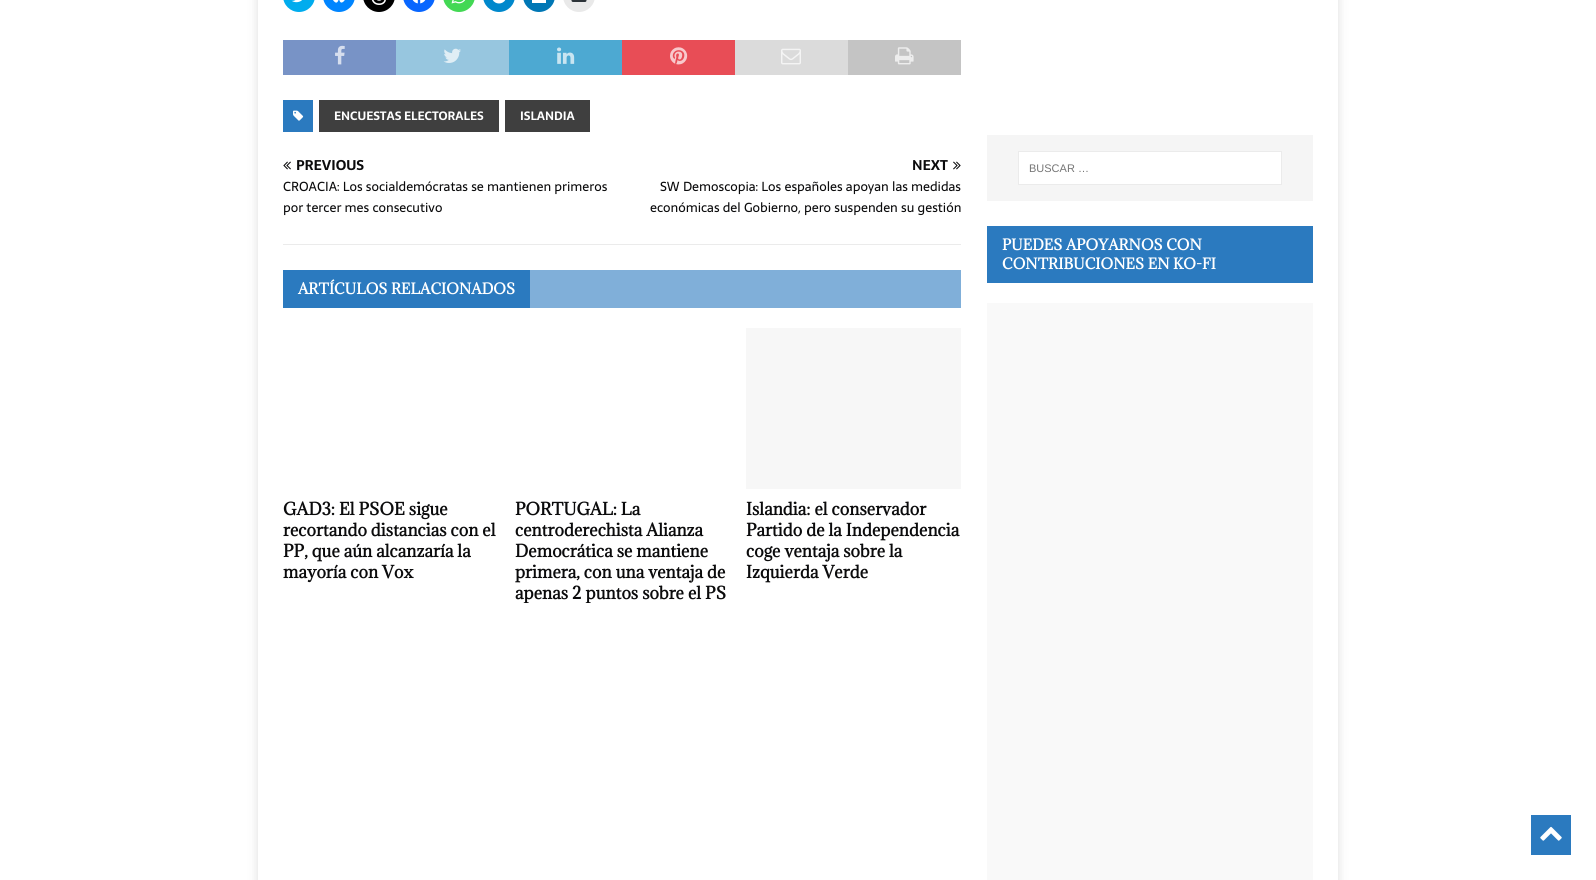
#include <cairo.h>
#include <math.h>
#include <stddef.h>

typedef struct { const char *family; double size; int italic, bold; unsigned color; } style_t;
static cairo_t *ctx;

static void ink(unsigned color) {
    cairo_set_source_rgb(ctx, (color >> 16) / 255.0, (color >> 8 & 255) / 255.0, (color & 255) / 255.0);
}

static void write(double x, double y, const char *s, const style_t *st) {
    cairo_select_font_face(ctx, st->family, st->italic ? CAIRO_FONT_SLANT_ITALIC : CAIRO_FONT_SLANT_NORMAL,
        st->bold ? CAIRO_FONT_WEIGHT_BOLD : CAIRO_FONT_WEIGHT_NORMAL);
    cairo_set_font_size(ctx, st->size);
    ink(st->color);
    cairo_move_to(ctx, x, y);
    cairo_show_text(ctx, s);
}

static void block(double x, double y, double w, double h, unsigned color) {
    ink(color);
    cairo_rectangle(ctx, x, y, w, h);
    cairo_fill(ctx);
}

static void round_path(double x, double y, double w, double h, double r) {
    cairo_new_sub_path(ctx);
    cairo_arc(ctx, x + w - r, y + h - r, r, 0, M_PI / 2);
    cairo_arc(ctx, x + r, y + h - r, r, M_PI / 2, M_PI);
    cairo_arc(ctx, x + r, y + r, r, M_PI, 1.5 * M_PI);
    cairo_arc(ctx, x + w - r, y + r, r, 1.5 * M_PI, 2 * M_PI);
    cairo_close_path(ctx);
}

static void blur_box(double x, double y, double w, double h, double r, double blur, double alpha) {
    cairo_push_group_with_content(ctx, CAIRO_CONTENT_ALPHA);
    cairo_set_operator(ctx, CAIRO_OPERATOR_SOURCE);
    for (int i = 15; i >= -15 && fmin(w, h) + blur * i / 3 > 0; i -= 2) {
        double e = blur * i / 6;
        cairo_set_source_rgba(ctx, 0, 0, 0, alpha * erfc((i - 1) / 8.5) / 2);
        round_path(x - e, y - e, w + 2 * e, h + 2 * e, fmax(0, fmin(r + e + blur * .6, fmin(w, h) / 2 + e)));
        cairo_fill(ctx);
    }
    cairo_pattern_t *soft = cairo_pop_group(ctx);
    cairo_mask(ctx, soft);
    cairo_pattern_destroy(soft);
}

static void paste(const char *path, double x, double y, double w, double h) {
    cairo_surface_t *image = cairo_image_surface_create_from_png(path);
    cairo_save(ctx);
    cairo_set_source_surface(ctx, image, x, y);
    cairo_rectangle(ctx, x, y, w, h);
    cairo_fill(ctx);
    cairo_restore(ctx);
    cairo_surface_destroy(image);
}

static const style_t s1 = {"Sarala", 12, 0, 1, 0xffffff};
static const style_t s2 = {"Sarala", 14, 0, 1, 0x0b0b0c};
static const style_t s3 = {"Sarala", 13, 0, 0, 0x0b0b0c};
static const style_t s4 = {"Adamina", 14, 0, 1, 0xffffff};
static const style_t s5 = {"Adamina", 16, 0, 1, 0x0b0b0c};
static const style_t s6 = {"Liberation Sans", 11, 0, 0, 0x757575};

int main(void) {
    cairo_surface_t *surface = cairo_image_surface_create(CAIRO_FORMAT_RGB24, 1596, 880);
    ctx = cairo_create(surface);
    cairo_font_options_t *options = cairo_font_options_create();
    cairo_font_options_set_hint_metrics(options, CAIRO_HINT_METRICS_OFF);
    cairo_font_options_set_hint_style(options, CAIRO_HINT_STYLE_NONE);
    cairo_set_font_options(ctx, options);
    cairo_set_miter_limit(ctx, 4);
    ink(0xffffff);
    cairo_paint(ctx);
    cairo_save(ctx);
    cairo_set_fill_rule(ctx, CAIRO_FILL_RULE_EVEN_ODD);
    cairo_new_path(ctx);
    cairo_move_to(ctx, 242, 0);
    cairo_line_to(ctx, 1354, 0);
    cairo_line_to(ctx, 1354, 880);
    cairo_line_to(ctx, 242, 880);
    cairo_close_path(ctx);
    cairo_move_to(ctx, 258, -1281);
    cairo_line_to(ctx, 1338, -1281);
    cairo_line_to(ctx, 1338, 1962);
    cairo_line_to(ctx, 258, 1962);
    cairo_close_path(ctx);
    cairo_clip(ctx);
    ink(0x323232);
    blur_box(258, -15, 1080, 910, 0, 5, 0.17);
    cairo_restore(ctx);
    ink(0x00acee);
    round_path(283, -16, 32, 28, 16);
    cairo_fill(ctx);
    paste("pic1.png", 291, 0, 11, 3);
    ink(0x0085ff);
    round_path(323, -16, 32, 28, 16);
    cairo_fill(ctx);
    paste("pic2.png", 333, 0, 12, 3);
    ink(0x000000);
    round_path(363, -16, 32, 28, 16);
    cairo_fill(ctx);
    paste("pic3.png", 371, 0, 15, 5);
    ink(0x0866ff);
    round_path(403, -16, 32, 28, 16);
    cairo_fill(ctx);
    paste("pic4.png", 412, 0, 14, 4);
    ink(0x43d854);
    round_path(443, -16, 32, 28, 16);
    cairo_fill(ctx);
    paste("pic5.png", 451, 0, 15, 4);
    ink(0x0088cc);
    round_path(483, -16, 32, 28, 16);
    cairo_fill(ctx);
    paste("pic6.png", 492, 0, 14, 4);
    ink(0x0077b5);
    round_path(523, -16, 32, 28, 16);
    cairo_fill(ctx);
    block(532, 0, 14, 3, 0xffffff);
    ink(0xe9e9e9);
    round_path(563, -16, 32, 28, 16);
    cairo_fill(ctx);
    paste("pic7.png", 571, 0, 16, 2);
    block(283, 40, 113, 35, 0x7893c6);
    paste("pic8.png", 335, 45, 10, 20);
    block(396, 40, 113, 35, 0x97c6df);
    paste("pic9.png", 443, 48, 18, 15);
    block(509, 40, 113, 35, 0x4da9d2);
    paste("pic10.png", 557, 47, 18, 17);
    block(622, 40, 113, 35, 0xe84d56);
    paste("pic11.png", 670, 47, 18, 18);
    block(735, 40, 113, 35, 0xdbdbdb);
    paste("pic12.png", 781, 48, 20, 17);
    block(848, 40, 113, 35, 0xc4c4c4);
    paste("pic13.png", 895, 47, 19, 18);
    block(283, 100, 30, 32, 0x2b7abf);
    paste("pic14.png", 293, 110, 11, 11);
    block(319, 100, 180, 32, 0x3f3f3f);
    write(334, 120, "ENCUESTAS ELECTORALES", &s1);
    block(505, 100, 85, 32, 0x3f3f3f);
    write(520, 120, "ISLANDIA", &s1);
    block(283, 244, 678, 1, 0xebebeb);
    paste("pic15.png", 283, 161, 8, 9);
    write(296, 170, "PREVIOUS", &s2);
    write(283, 191, "CROACIA: Los socialdemócratas se mantienen primeros", &s3);
    write(283, 212, "por tercer mes consecutivo", &s3);
    write(912, 170, "NEXT", &s2);
    paste("pic16.png", 953, 161, 8, 9);
    write(660, 191, "SW Demoscopia: Los españoles apoyan las medidas", &s3);
    write(650, 212, "económicas del Gobierno, pero suspenden su gestión", &s3);
    block(530, 270, 431, 38, 0x80afd9);
    block(283, 270, 247, 38, 0x2b7abf);
    write(298, 294, "ARTÍCULOS RELACIONADOS", &s4);
    write(283, 515, "GAD3: El PSOE sigue", &s5);
    write(283, 536, "recortando distancias con el", &s5);
    write(283, 557, "PP, que aún alcanzaría la", &s5);
    write(283, 578, "mayoría con Vox", &s5);
    write(515, 515, "PORTUGAL: La", &s5);
    write(515, 536, "centroderechista Alianza", &s5);
    write(515, 557, "Democrática se mantiene", &s5);
    write(515, 578, "primera, con una ventaja de", &s5);
    cairo_save(ctx);
    cairo_rectangle(ctx, 515, 328, 214, 275);
    cairo_clip(ctx);
    write(515, 599, "apenas 2 puntos sobre el PS", &s5);
    cairo_restore(ctx);
    block(746, 328, 215, 161, 0xf7f7f7);
    write(746, 515, "Islandia: el conservador", &s5);
    write(746, 536, "Partido de la Independencia", &s5);
    write(746, 557, "coge ventaja sobre la", &s5);
    write(746, 578, "Izquierda Verde", &s5);
    block(987, 135, 326, 66, 0xf5f5f5);
    ink(0xffffff);
    cairo_rectangle(ctx, 1018.5, 151.5, 263, 33);
    cairo_fill_preserve(ctx);
    ink(0xebebeb);
    cairo_set_line_width(ctx, 1);
    cairo_stroke(ctx);
    write(1029, 172, "BUSCAR …", &s6);
    block(987, 226, 326, 57, 0x2b7abf);
    write(1002, 250, "PUEDES APOYARNOS CON", &s4);
    write(1002, 269, "CONTRIBUCIONES EN KO-FI", &s4);
    block(987, 303, 326, 577, 0xf9f9f9);
    block(1531, 815, 40, 40, 0x2b7abf);
    paste("pic17.png", 1540, 826, 22, 15);
    cairo_surface_write_to_png(surface, "screenshot.png");
    cairo_font_options_destroy(options);
    cairo_destroy(ctx);
    cairo_surface_destroy(surface);
    return 0;
}
